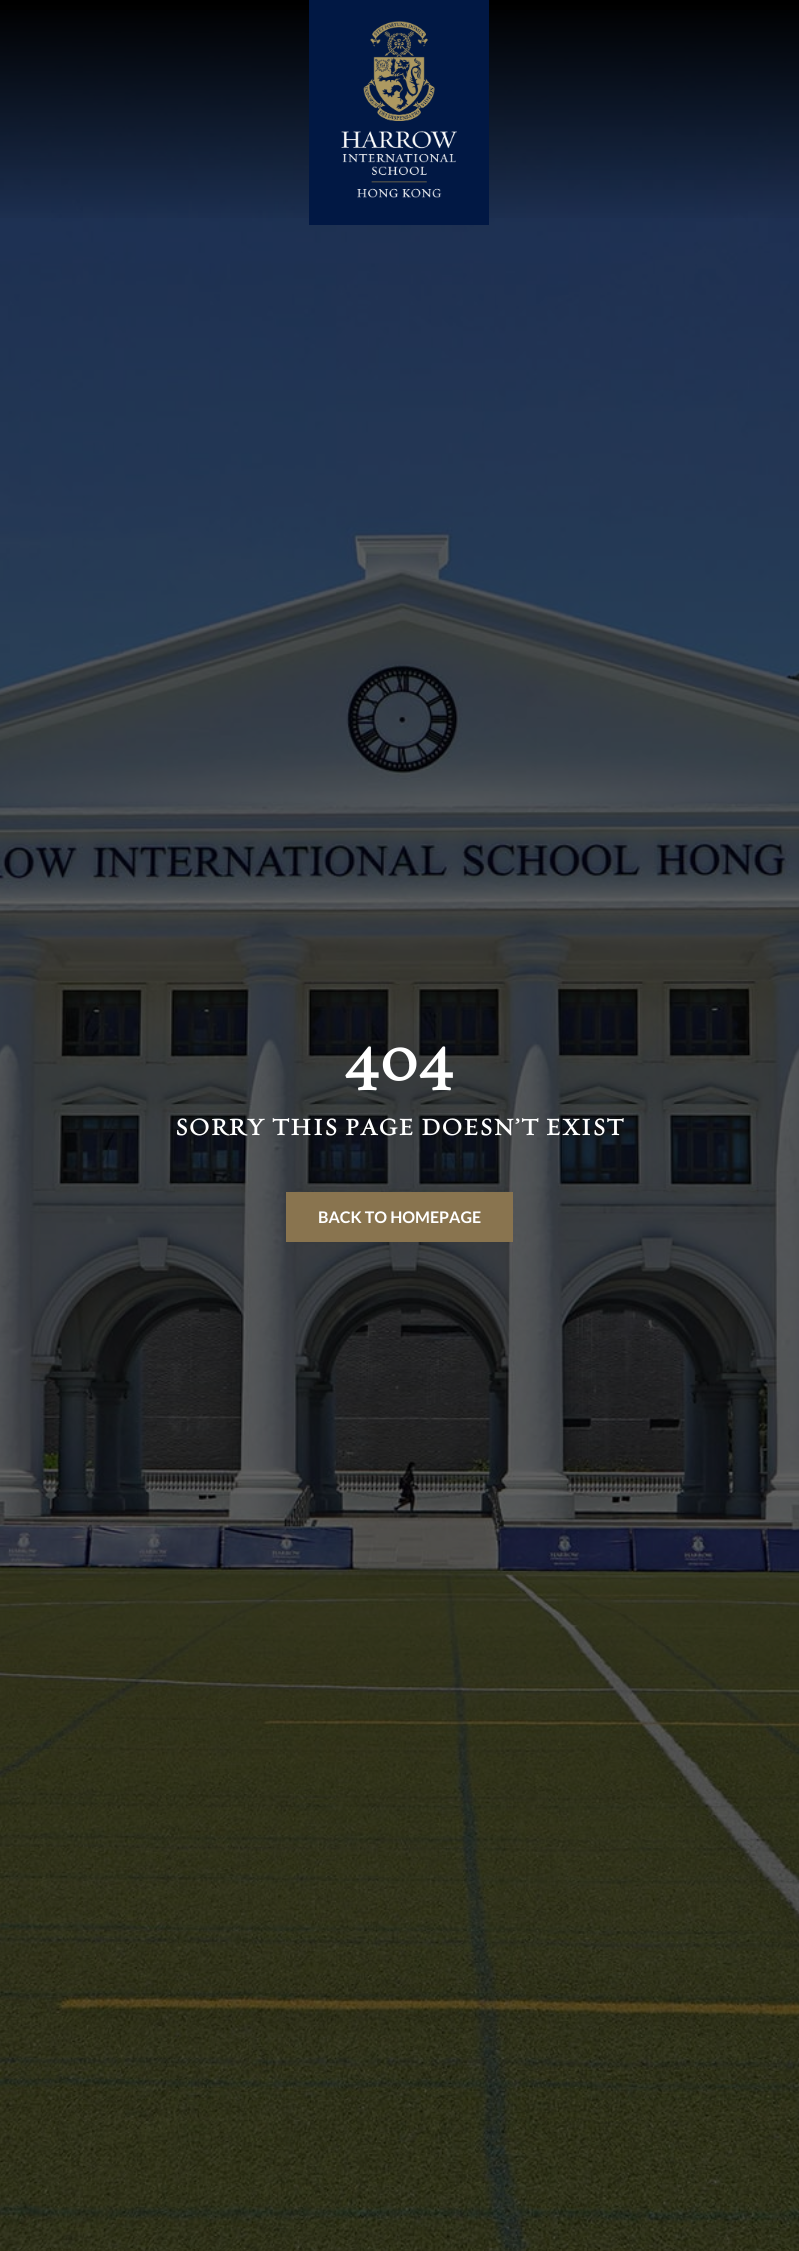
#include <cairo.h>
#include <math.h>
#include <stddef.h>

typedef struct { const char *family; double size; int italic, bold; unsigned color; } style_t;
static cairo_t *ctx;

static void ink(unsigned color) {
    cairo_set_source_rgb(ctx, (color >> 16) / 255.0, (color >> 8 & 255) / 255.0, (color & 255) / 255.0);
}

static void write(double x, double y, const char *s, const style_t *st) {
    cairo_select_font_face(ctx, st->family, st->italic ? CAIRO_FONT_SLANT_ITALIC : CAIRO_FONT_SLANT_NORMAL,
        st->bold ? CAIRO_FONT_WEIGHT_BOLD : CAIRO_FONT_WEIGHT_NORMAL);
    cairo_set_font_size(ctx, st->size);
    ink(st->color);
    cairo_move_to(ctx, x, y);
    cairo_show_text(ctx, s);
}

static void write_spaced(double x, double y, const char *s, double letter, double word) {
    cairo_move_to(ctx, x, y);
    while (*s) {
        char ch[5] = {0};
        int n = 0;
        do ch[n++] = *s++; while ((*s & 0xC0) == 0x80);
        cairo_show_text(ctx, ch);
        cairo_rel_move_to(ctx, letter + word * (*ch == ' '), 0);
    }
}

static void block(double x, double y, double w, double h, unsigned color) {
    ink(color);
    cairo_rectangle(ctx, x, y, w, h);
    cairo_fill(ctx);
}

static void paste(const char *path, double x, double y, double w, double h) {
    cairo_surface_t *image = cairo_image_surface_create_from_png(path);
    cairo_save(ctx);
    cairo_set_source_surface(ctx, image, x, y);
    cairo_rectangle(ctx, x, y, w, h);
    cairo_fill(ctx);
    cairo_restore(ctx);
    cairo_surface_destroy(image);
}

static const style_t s1 = {"Lato", 16, 0, 1, 0xffffff};

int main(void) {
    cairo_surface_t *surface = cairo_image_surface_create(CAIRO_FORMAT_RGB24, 799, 2251);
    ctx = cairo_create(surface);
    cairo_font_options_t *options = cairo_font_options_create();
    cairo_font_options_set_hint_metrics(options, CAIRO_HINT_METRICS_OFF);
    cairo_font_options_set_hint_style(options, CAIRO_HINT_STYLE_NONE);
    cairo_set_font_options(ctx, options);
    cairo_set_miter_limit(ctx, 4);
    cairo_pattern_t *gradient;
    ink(0x181818);
    cairo_paint(ctx);
    paste("pic2.png", 0, 10, 799, 2241);
    gradient = cairo_pattern_create_linear(400, 0, 400, 225);
    cairo_pattern_add_color_stop_rgba(gradient, 0, 0, 0, 0, 1);
    cairo_pattern_add_color_stop_rgba(gradient, 1, 0, 0, 0, 0);
    cairo_set_source(ctx, gradient);
    cairo_pattern_destroy(gradient);
    cairo_rectangle(ctx, 0, 0, 799, 218);
    cairo_fill(ctx);
    paste("pic1.png", 309, 0, 180, 225);
    cairo_select_font_face(ctx, "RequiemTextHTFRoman", CAIRO_FONT_SLANT_NORMAL, CAIRO_FONT_WEIGHT_BOLD);
    cairo_set_font_size(ctx, 64);
    ink(0xffffff);
    write_spaced(345, 1080, "404", 1, 0);
    cairo_set_font_size(ctx, 24);
    write_spaced(175, 1135, "SORRY THIS PAGE DOESN’T EXIST", 1, 0);
    block(286, 1192, 227, 50, 0x89744f);
    write(318, 1223, "BACK TO HOMEPAGE", &s1);
    cairo_surface_write_to_png(surface, "screenshot.png");
    cairo_font_options_destroy(options);
    cairo_destroy(ctx);
    cairo_surface_destroy(surface);
    return 0;
}
